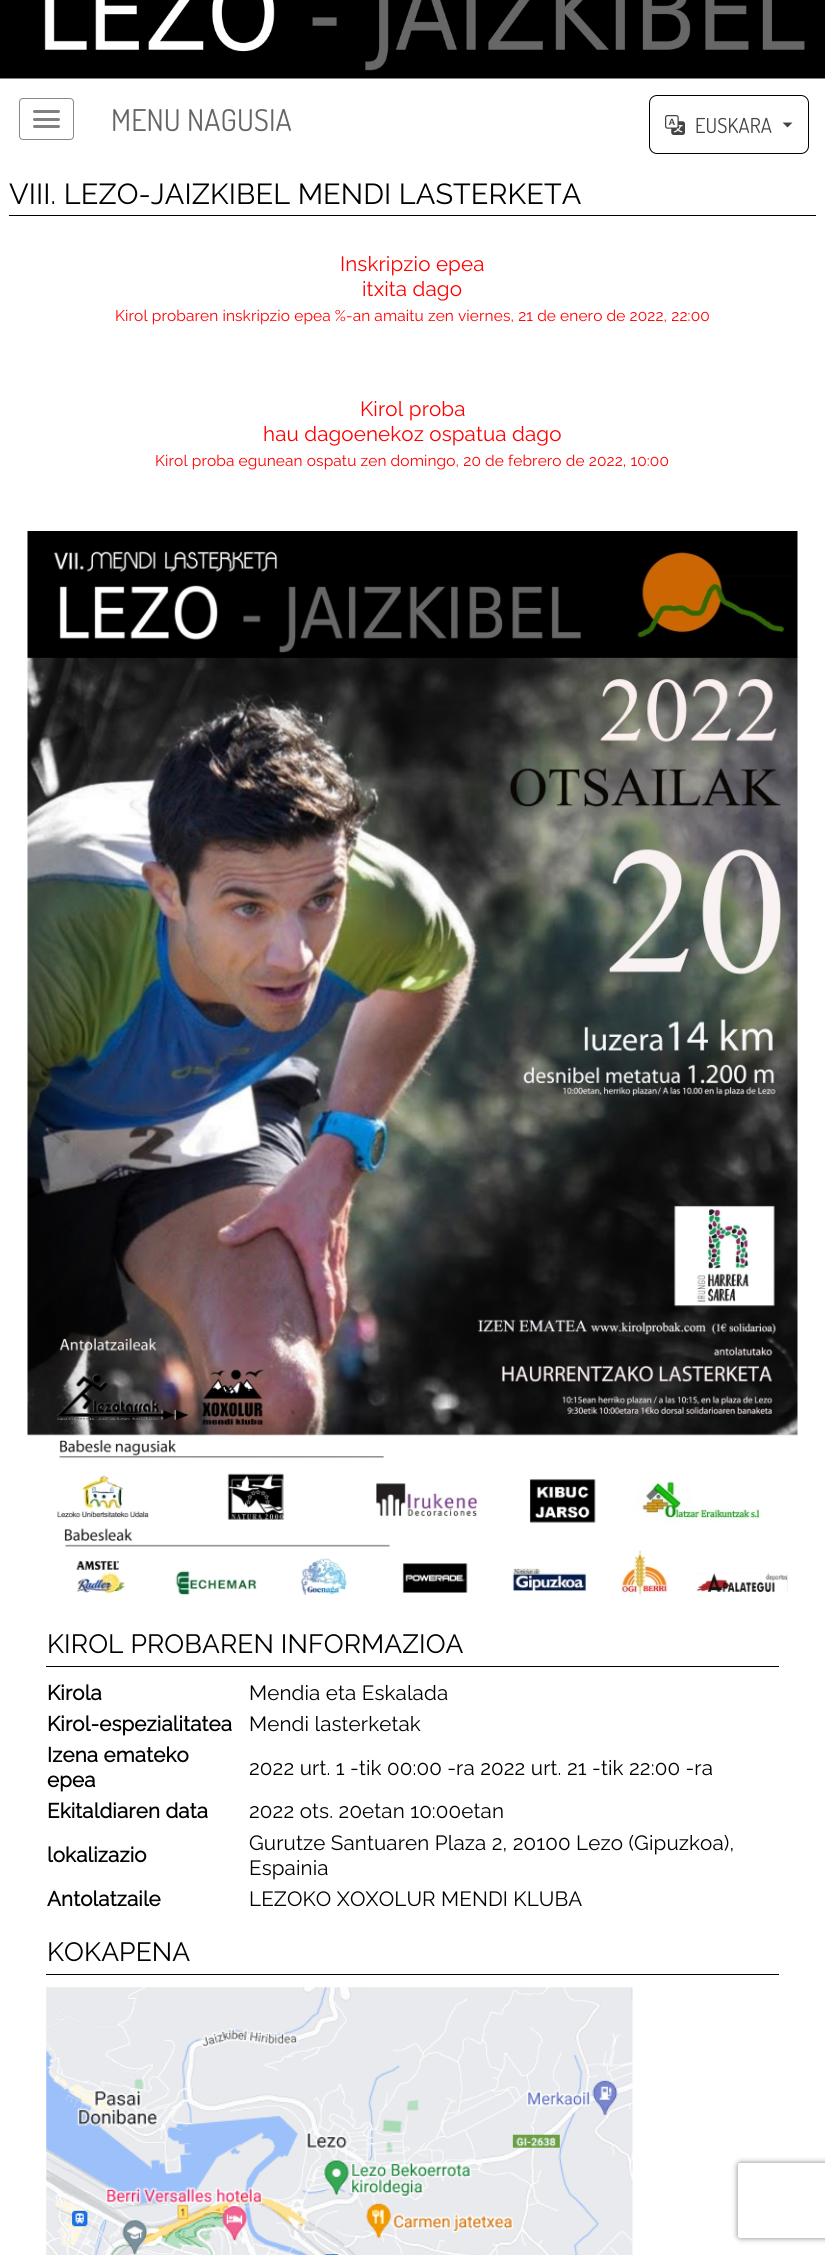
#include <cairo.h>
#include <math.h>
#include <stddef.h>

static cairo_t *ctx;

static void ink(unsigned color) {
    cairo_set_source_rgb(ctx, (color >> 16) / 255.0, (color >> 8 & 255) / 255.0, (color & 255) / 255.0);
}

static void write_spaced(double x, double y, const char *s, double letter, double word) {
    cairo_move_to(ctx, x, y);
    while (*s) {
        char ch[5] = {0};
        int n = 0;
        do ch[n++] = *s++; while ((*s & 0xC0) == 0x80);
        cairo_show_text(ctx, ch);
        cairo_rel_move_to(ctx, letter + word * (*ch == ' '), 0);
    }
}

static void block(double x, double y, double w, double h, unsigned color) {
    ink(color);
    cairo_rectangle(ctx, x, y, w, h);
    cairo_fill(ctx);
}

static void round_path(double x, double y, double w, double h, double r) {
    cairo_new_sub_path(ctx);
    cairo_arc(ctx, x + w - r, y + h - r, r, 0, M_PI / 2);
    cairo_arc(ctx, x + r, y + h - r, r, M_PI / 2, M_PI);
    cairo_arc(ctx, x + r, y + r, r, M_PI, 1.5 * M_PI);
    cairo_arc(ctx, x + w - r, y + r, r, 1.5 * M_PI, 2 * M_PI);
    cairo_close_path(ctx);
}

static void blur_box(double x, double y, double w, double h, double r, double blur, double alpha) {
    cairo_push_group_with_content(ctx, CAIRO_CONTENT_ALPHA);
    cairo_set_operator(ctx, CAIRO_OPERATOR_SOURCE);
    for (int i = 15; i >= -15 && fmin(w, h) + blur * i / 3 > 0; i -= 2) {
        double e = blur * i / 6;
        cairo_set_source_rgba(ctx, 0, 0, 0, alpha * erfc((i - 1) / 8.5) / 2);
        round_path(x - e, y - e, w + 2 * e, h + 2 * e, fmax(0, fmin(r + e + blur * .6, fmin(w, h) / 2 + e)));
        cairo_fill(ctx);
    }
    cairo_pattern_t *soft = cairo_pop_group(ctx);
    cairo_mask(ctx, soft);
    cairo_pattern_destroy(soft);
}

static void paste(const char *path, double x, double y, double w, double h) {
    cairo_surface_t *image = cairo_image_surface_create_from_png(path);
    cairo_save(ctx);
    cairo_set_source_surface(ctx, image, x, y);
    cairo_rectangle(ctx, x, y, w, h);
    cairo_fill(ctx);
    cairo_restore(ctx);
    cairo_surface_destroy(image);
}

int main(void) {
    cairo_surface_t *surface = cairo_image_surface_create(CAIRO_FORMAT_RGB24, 825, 2255);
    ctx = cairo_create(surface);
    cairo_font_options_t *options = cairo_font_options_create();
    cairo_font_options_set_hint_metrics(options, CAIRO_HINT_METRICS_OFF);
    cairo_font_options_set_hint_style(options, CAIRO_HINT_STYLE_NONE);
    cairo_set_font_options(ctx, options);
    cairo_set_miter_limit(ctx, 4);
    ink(0xffffff);
    cairo_paint(ctx);
    paste("pic1.png", 0, 0, 825, 79);
    round_path(19.5, 98.5, 54, 41, 3.5);
    ink(0x888888);
    cairo_set_line_width(ctx, 1);
    cairo_stroke(ctx);
    ink(0x808080);
    round_path(33, 110, 27, 3, 1.5);
    cairo_fill(ctx);
    round_path(33, 118, 27, 3, 1.5);
    cairo_fill(ctx);
    round_path(33, 125, 27, 3, 1.5);
    cairo_fill(ctx);
    cairo_select_font_face(ctx, "Dosis", CAIRO_FONT_SLANT_NORMAL, CAIRO_FONT_WEIGHT_NORMAL);
    cairo_set_font_size(ctx, 30);
    ink(0x666666);
    write_spaced(111, 131, "MENU NAGUSIA", 0.12, 0);
    round_path(649.5, 95.5, 159, 58, 7.5);
    ink(0x000000);
    cairo_stroke(ctx);
    paste("pic2.png", 665, 115, 20, 20);
    cairo_set_font_size(ctx, 20.6);
    ink(0x444444);
    write_spaced(695, 133, "EUSKARA", 0.12, 0);
    cairo_new_path(ctx);
    cairo_move_to(ctx, 782.5, 122.5);
    cairo_line_to(ctx, 792.5, 122.5);
    cairo_line_to(ctx, 787.5, 127.5);
    cairo_close_path(ctx);
    cairo_fill(ctx);
    block(9, 215, 807, 1, 0x000000);
    cairo_select_font_face(ctx, "Raleway Thin", CAIRO_FONT_SLANT_NORMAL, CAIRO_FONT_WEIGHT_NORMAL);
    cairo_set_font_size(ctx, 28.9);
    write_spaced(9, 204, "VIII. LEZO-JAIZKIBEL MENDI LASTERKETA", 0.12, 0);
    cairo_set_font_size(ctx, 20.6);
    ink(0xff0000);
    write_spaced(340, 271, "Inskripzio epea", 0.12, 0);
    write_spaced(362, 296, "itxita dago", 0.12, 0);
    cairo_set_font_size(ctx, 15.45);
    write_spaced(115, 321, "Kirol probaren inskripzio epea %-an amaitu zen viernes, 21 de enero de 2022, 22:00", 0.12, 0);
    cairo_set_font_size(ctx, 20.6);
    write_spaced(360, 416, "Kirol proba", 0.12, 0);
    write_spaced(263, 441, "hau dagoenekoz ospatua dago", 0.12, 0);
    cairo_set_font_size(ctx, 15.45);
    write_spaced(155, 466, "Kirol proba egunean ospatu zen domingo, 20 de febrero de 2022, 10:00", 0.12, 0);
    paste("pic3.png", 27, 531, 771, 1065);
    block(46, 1666, 733, 1, 0x000000);
    cairo_set_font_size(ctx, 26.4);
    write_spaced(47, 1653, "KIROL PROBAREN INFORMAZIOA", 0.12, 0);
    cairo_select_font_face(ctx, "Raleway", CAIRO_FONT_SLANT_NORMAL, CAIRO_FONT_WEIGHT_BOLD);
    cairo_set_font_size(ctx, 20.6);
    write_spaced(47, 1700, "Kirola", 0.12, 0);
    cairo_select_font_face(ctx, "Raleway Thin", CAIRO_FONT_SLANT_NORMAL, CAIRO_FONT_WEIGHT_NORMAL);
    write_spaced(249, 1700, "Mendia eta Eskalada", 0.12, 0);
    cairo_select_font_face(ctx, "Raleway", CAIRO_FONT_SLANT_NORMAL, CAIRO_FONT_WEIGHT_BOLD);
    write_spaced(47, 1731, "Kirol-espezialitatea", 0.12, 0);
    cairo_select_font_face(ctx, "Raleway Thin", CAIRO_FONT_SLANT_NORMAL, CAIRO_FONT_WEIGHT_NORMAL);
    write_spaced(249, 1731, "Mendi lasterketak", 0.12, 0);
    cairo_select_font_face(ctx, "Raleway", CAIRO_FONT_SLANT_NORMAL, CAIRO_FONT_WEIGHT_BOLD);
    write_spaced(47, 1762, "Izena emateko", 0.12, 0);
    write_spaced(47, 1787, "epea", 0.12, 0);
    cairo_select_font_face(ctx, "Raleway Thin", CAIRO_FONT_SLANT_NORMAL, CAIRO_FONT_WEIGHT_NORMAL);
    write_spaced(249, 1775, "2022 urt. 1 -tik 00:00 -ra 2022 urt. 21 -tik 22:00 -ra", 0.12, 0);
    cairo_select_font_face(ctx, "Raleway", CAIRO_FONT_SLANT_NORMAL, CAIRO_FONT_WEIGHT_BOLD);
    write_spaced(47, 1818, "Ekitaldiaren data", 0.12, 0);
    cairo_select_font_face(ctx, "Raleway Thin", CAIRO_FONT_SLANT_NORMAL, CAIRO_FONT_WEIGHT_NORMAL);
    write_spaced(249, 1818, "2022 ots. 20etan 10:00etan", 0.12, 0);
    cairo_select_font_face(ctx, "Raleway", CAIRO_FONT_SLANT_NORMAL, CAIRO_FONT_WEIGHT_BOLD);
    write_spaced(47, 1862, "lokalizazio", 0.12, 0);
    cairo_select_font_face(ctx, "Raleway Thin", CAIRO_FONT_SLANT_NORMAL, CAIRO_FONT_WEIGHT_NORMAL);
    write_spaced(249, 1850, "Gurutze Santuaren Plaza 2, 20100 Lezo (Gipuzkoa),", 0.12, 0);
    write_spaced(249, 1875, "Espainia", 0.12, 0);
    cairo_select_font_face(ctx, "Raleway", CAIRO_FONT_SLANT_NORMAL, CAIRO_FONT_WEIGHT_BOLD);
    write_spaced(47, 1906, "Antolatzaile", 0.12, 0);
    cairo_select_font_face(ctx, "Raleway Thin", CAIRO_FONT_SLANT_NORMAL, CAIRO_FONT_WEIGHT_NORMAL);
    write_spaced(249, 1906, "LEZOKO XOXOLUR MENDI KLUBA", 0.12, 0);
    block(46, 1974, 733, 1, 0x000000);
    cairo_set_font_size(ctx, 26.4);
    write_spaced(47, 1961, "KOKAPENA", 0.12, 0);
    paste("pic4.png", 46, 1987, 587, 268);
    cairo_save(ctx);
    cairo_set_fill_rule(ctx, CAIRO_FILL_RULE_EVEN_ODD);
    cairo_new_path(ctx);
    cairo_move_to(ctx, 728, 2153);
    cairo_line_to(ctx, 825, 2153);
    cairo_line_to(ctx, 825, 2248);
    cairo_line_to(ctx, 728, 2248);
    cairo_close_path(ctx);
    cairo_move_to(ctx, 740.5, 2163);
    cairo_line_to(ctx, 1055.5, 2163);
    cairo_curve_to(ctx, 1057, 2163, 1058, 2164, 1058, 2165.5);
    cairo_line_to(ctx, 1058, 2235.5);
    cairo_curve_to(ctx, 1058, 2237, 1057, 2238, 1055.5, 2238);
    cairo_line_to(ctx, 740.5, 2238);
    cairo_curve_to(ctx, 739, 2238, 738, 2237, 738, 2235.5);
    cairo_line_to(ctx, 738, 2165.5);
    cairo_curve_to(ctx, 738, 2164, 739, 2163, 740.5, 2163);
    cairo_close_path(ctx);
    cairo_clip(ctx);
    ink(0x808080);
    blur_box(738, 2163, 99, 75, 2.5, 3, 1);
    cairo_restore(ctx);
    cairo_surface_write_to_png(surface, "screenshot.png");
    cairo_font_options_destroy(options);
    cairo_destroy(ctx);
    cairo_surface_destroy(surface);
    return 0;
}
